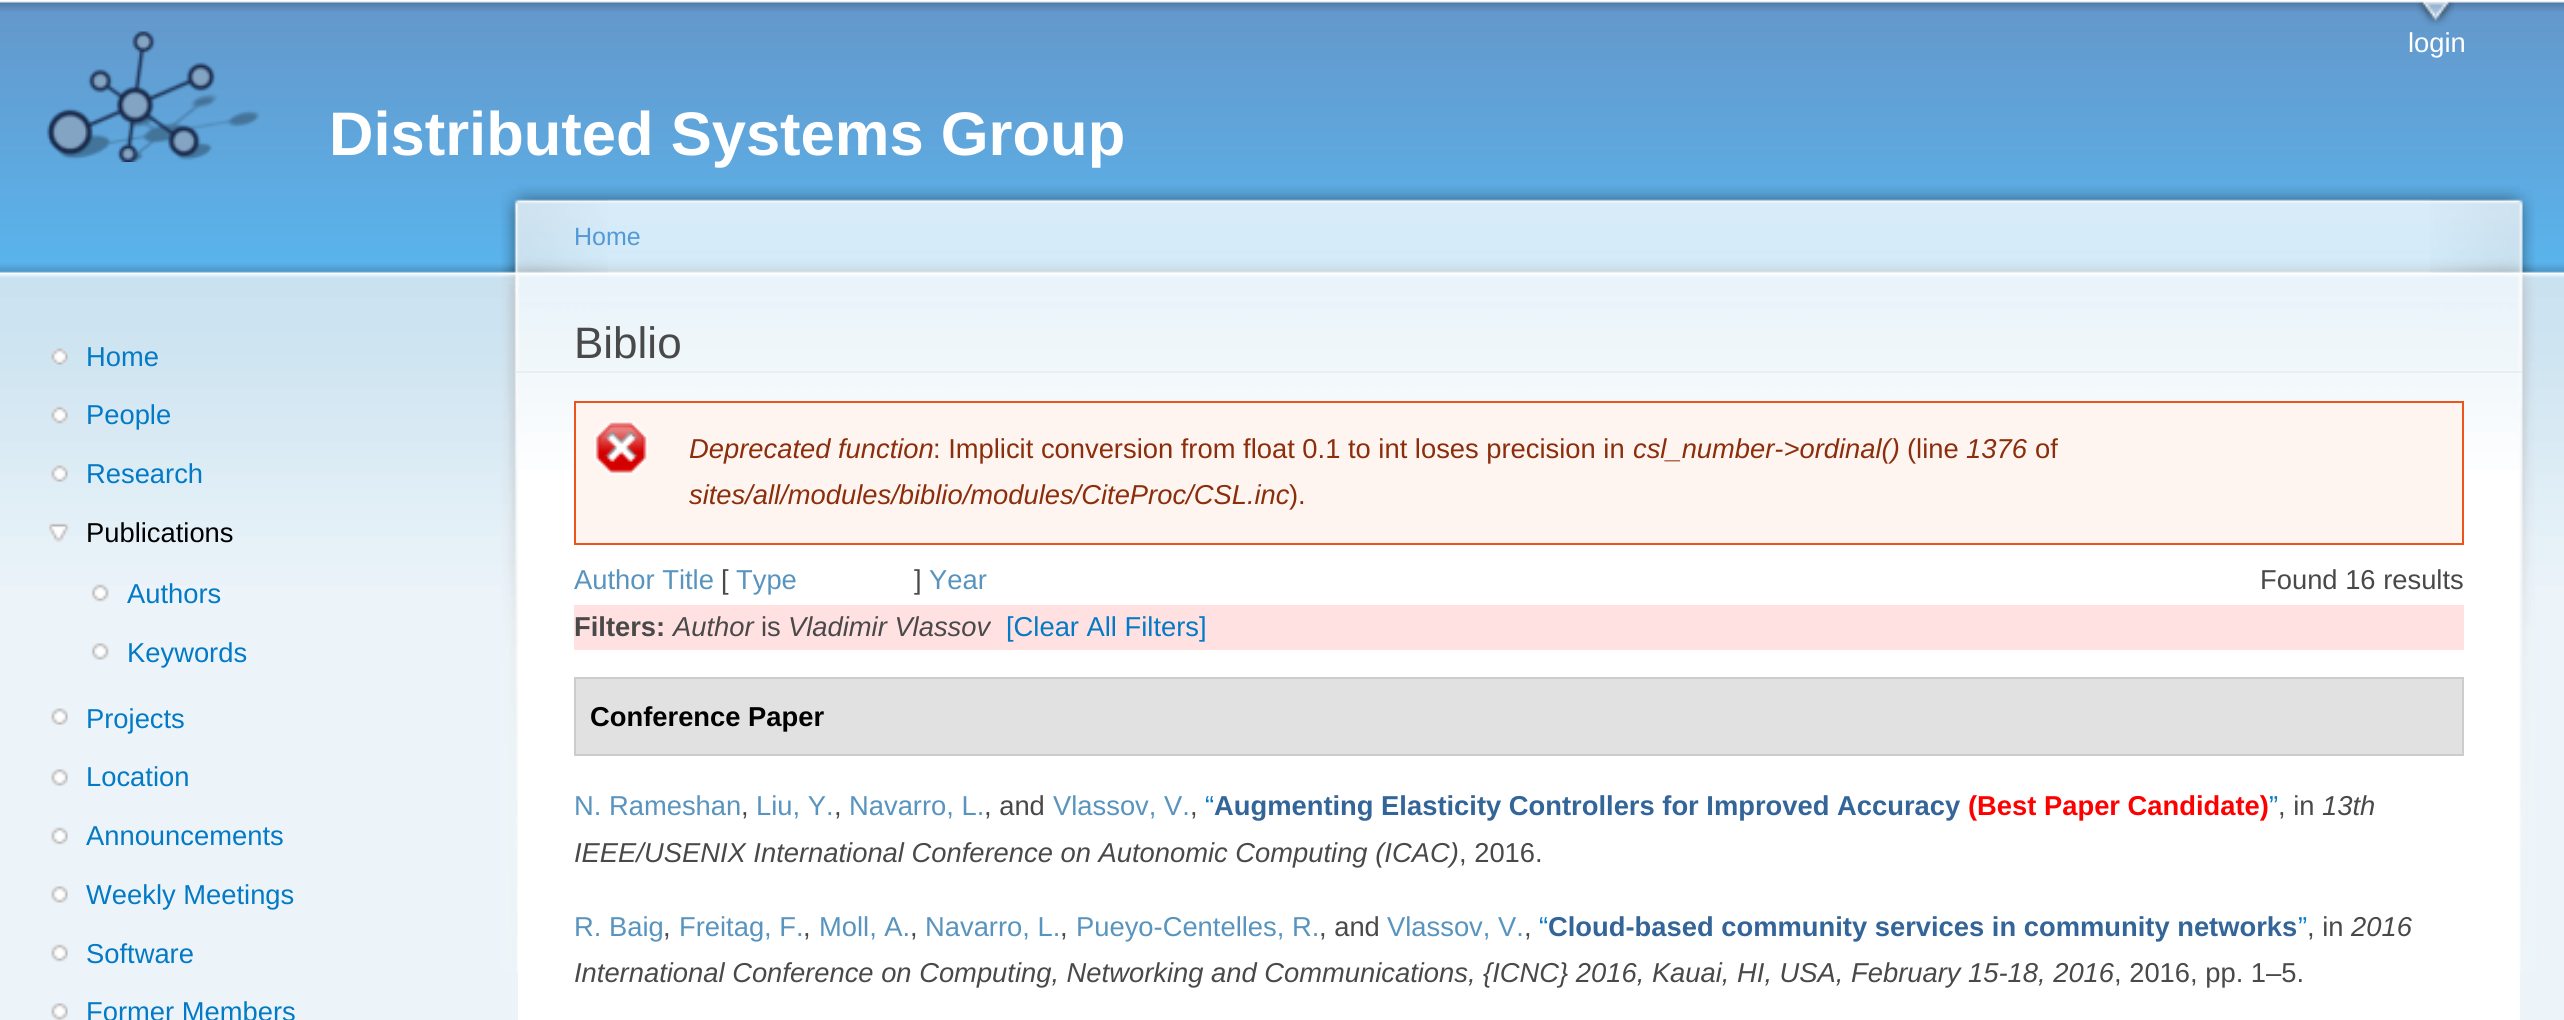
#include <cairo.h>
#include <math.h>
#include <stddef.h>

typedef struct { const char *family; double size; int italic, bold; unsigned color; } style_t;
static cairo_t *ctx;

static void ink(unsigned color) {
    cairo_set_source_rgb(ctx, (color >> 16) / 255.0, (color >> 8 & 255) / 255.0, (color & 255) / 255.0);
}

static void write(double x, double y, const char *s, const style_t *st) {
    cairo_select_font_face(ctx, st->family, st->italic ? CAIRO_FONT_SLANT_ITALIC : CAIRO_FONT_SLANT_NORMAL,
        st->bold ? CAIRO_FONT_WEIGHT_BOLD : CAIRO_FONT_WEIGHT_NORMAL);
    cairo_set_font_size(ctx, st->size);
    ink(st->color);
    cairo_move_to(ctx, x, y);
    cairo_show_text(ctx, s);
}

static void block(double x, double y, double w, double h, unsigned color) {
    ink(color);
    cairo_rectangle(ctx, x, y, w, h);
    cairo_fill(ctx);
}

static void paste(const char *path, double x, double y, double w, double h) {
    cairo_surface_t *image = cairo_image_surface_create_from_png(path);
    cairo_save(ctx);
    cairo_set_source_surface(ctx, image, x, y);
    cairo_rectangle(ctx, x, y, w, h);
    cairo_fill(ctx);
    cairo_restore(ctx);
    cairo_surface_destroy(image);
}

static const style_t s1 = {"Liberation Sans", 27.35, 0, 0, 0xffffff};
static const style_t s2 = {"Liberation Sans", 61.5, 0, 1, 0xffffff};
static const style_t s3 = {"Liberation Sans", 27.35, 0, 0, 0x027ac6};
static const style_t s4 = {"Liberation Sans", 27.35, 0, 0, 0x000000};
static const style_t s5 = {"Liberation Sans", 25, 0, 0, 0x5299d6};
static const style_t s6 = {"Liberation Sans", 44, 0, 0, 0x494949};
static const style_t s7 = {"Liberation Sans", 27.35, 1, 0, 0x8c2e0b};
static const style_t s8 = {"Liberation Sans", 27.35, 0, 0, 0x8c2e0b};
static const style_t s9 = {"Liberation Sans", 27.35, 0, 0, 0x5894be};
static const style_t s10 = {"Liberation Sans", 27.35, 0, 0, 0x494949};
static const style_t s11 = {"Liberation Sans", 27.35, 0, 1, 0x494949};
static const style_t s12 = {"Liberation Sans", 27.35, 1, 0, 0x494949};
static const style_t s13 = {"Liberation Sans", 27.35, 0, 1, 0x000000};
static const style_t s14 = {"Liberation Sans", 27.35, 0, 1, 0x336599};
static const style_t s15 = {"Liberation Sans", 27.35, 0, 1, 0xff0000};

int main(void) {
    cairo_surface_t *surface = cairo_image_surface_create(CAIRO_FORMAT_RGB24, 2564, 1020);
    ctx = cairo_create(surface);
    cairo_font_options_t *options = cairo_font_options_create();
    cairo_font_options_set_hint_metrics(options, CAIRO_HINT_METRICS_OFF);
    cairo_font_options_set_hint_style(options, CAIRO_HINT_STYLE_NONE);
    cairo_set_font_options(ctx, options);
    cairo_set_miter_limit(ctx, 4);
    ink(0xedf4f9);
    cairo_paint(ctx);
    paste("pic1.png", 0, 0, 2564, 585);
    paste("pic2.png", 2416, 1, 39, 25);
    write(2408, 52, "login", &s1);
    paste("pic3.png", 46, 31, 214, 131);
    write(329, 155, "Distributed Systems Group", &s2);
    paste("pic4.png", 51, 348, 17, 17);
    write(86, 366, "Home", &s3);
    paste("pic5.png", 51, 406, 17, 18);
    write(86, 424, "People", &s3);
    paste("pic6.png", 51, 465, 17, 17);
    write(86, 483, "Research", &s3);
    paste("pic7.png", 47, 523, 23, 20);
    write(86, 542, "Publications", &s4);
    paste("pic8.png", 91, 584, 18, 18);
    write(127, 603, "Authors", &s3);
    paste("pic9.png", 91, 643, 18, 17);
    write(127, 662, "Keywords", &s3);
    paste("pic10.png", 51, 708, 17, 17);
    write(86, 728, "Projects", &s3);
    paste("pic11.png", 51, 769, 17, 17);
    write(86, 786, "Location", &s3);
    paste("pic12.png", 51, 827, 17, 18);
    write(86, 845, "Announcements", &s3);
    paste("pic11.png", 51, 886, 17, 17);
    write(86, 904, "Weekly Meetings", &s3);
    paste("pic13.png", 51, 944, 17, 18);
    write(86, 963, "Software", &s3);
    paste("pic11.png", 51, 1003, 17, 17);
    write(86, 1021, "Former Members", &s3);
    block(518, 650, 2002, 370, 0xffffff);
    paste("pic14.png", 517, 180, 2003, 425);
    paste("pic15.png", 2430, 189, 105, 783);
    paste("pic16.png", 501, 189, 107, 783);
    write(574, 245, "Home", &s5);
    block(515, 371, 2007, 2, 0xe9eef3);
    write(574, 358, "Biblio", &s6);
    block(576, 403, 1886, 140, 0xfef5f1);
    paste("pic17.png", 594, 421, 54, 54);
    cairo_rectangle(ctx, 575, 402, 1888, 142);
    ink(0xed541d);
    cairo_stroke(ctx);
    write(689, 458, "Deprecated function", &s7);
    write(933, 458, ": Implicit conversion from float 0.1 to int loses precision in", &s8);
    write(1633, 458, "csl_number->ordinal()", &s7);
    write(1907, 458, "(line", &s8);
    write(1966, 458, "1376", &s7);
    write(2035, 458, "of", &s8);
    write(689, 504, "sites/all/modules/biblio/modules/CiteProc/CSL.inc", &s7);
    write(1289, 504, ").", &s8);
    write(574, 589, "Author Title", &s9);
    write(721, 589, "[", &s10);
    write(736, 589, "Type", &s9);
    write(914, 589, "]", &s10);
    write(929, 589, "Year", &s9);
    write(2260, 589, "Found 16 results", &s10);
    block(574, 605, 1890, 45, 0xffe1e1);
    write(574, 636, "Filters:", &s11);
    write(673, 636, "Author", &s12);
    write(761, 636, "is", &s10);
    write(788, 636, "Vladimir Vlassov", &s12);
    write(1006, 636, "[Clear All Filters]", &s3);
    ink(0xe1e1e1);
    cairo_rectangle(ctx, 575, 678, 1888, 77);
    cairo_fill_preserve(ctx);
    ink(0xcccccc);
    cairo_stroke(ctx);
    write(590, 726, "Conference Paper", &s13);
    write(574, 815, "N. Rameshan", &s9);
    write(756, 815, "Liu, Y.", &s9);
    write(849, 815, "Navarro, L.", &s9);
    write(984, 815, ", and", &s10);
    write(1053, 815, "Vlassov, V.", &s9);
    write(1205, 815, "“", &s3);
    write(1214, 815, "Augmenting Elasticity Controllers for Improved Accuracy", &s14);
    write(1968, 815, "(Best Paper Candidate)", &s15);
    write(2269, 815, "”", &s3);
    write(2278, 815, ", in", &s10);
    write(2322, 815, "13th", &s12);
    write(741, 815, ",", &s10);
    write(834, 815, ",", &s10);
    write(1190, 815, ",", &s10);
    write(574, 862, "IEEE/USENIX International Conference on Autonomic Computing (ICAC)", &s12);
    write(1459, 862, ", 2016.", &s10);
    write(574, 936, "R. Baig", &s9);
    write(679, 936, "Freitag, F.", &s9);
    write(819, 936, "Moll, A.", &s9);
    write(925, 936, "Navarro, L.", &s9);
    write(1076, 936, "Pueyo-Centelles, R.", &s9);
    write(1319, 936, ", and", &s10);
    write(1387, 936, "Vlassov, V.", &s9);
    write(1539, 936, "“", &s3);
    write(1548, 936, "Cloud-based community services in community networks", &s14);
    write(2298, 936, "”", &s3);
    write(2307, 936, ", in", &s10);
    write(2351, 936, "2016", &s12);
    write(663, 936, ",", &s10);
    write(803, 936, ",", &s10);
    write(910, 936, ",", &s10);
    write(1060, 936, ",", &s10);
    write(1524, 936, ",", &s10);
    write(574, 982, "International Conference on Computing, Networking and Communications, {ICNC} 2016, Kauai, HI, USA, February 15-18, 2016", &s12);
    write(2114, 982, ", 2016, pp. 1–5.", &s10);
    cairo_surface_write_to_png(surface, "screenshot.png");
    cairo_font_options_destroy(options);
    cairo_destroy(ctx);
    cairo_surface_destroy(surface);
    return 0;
}
